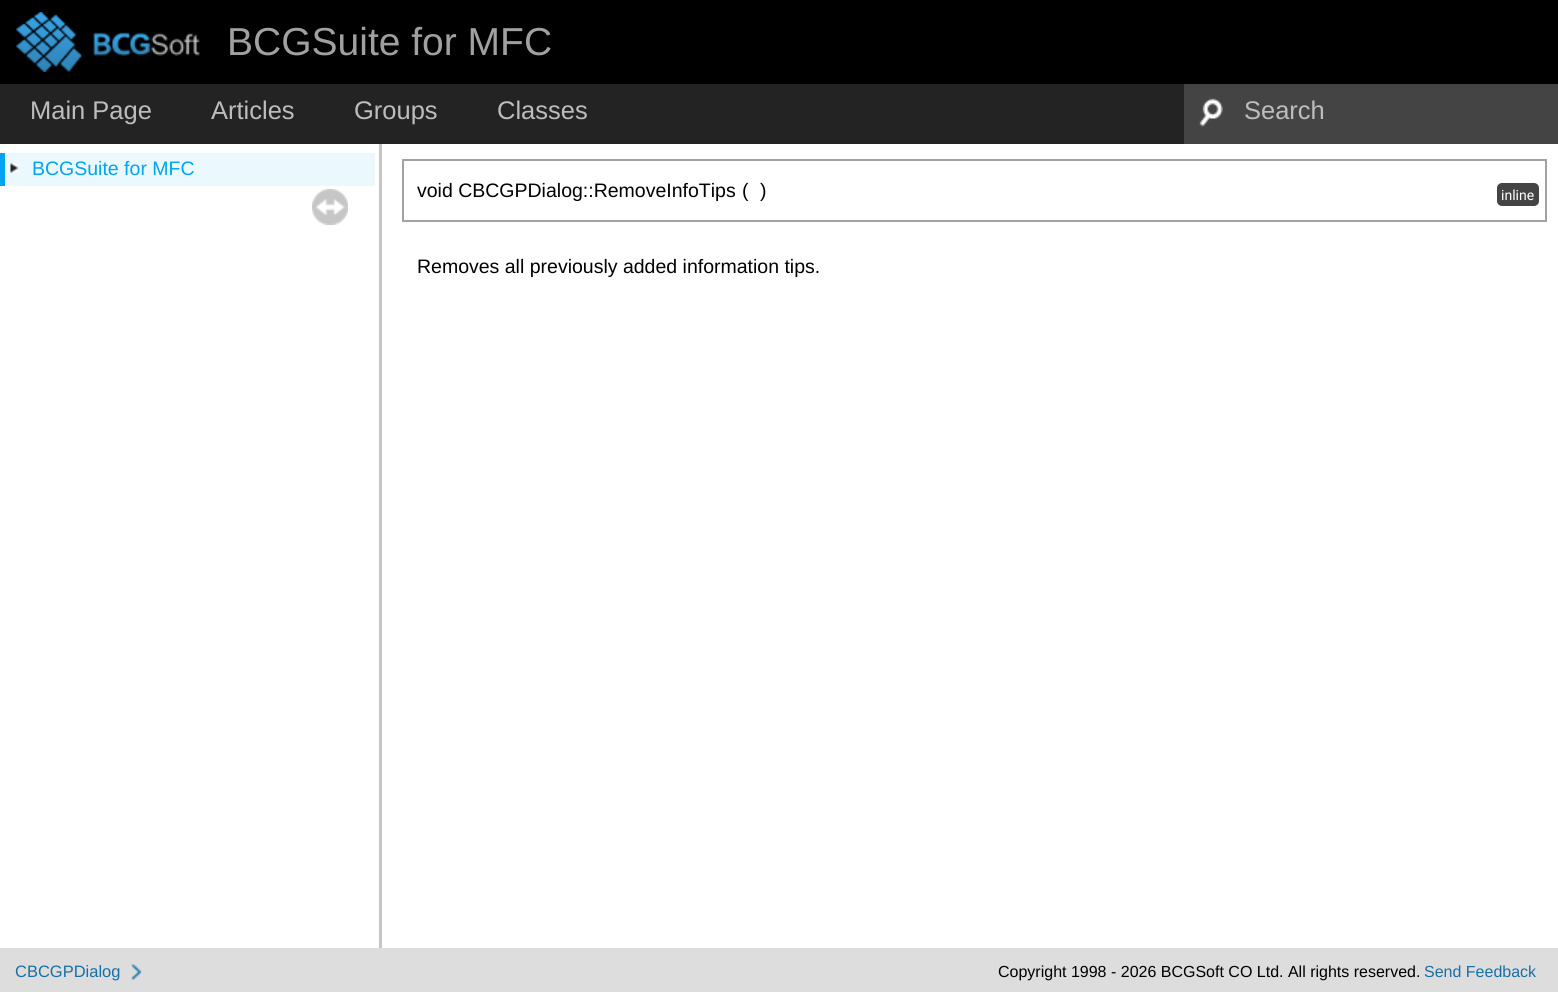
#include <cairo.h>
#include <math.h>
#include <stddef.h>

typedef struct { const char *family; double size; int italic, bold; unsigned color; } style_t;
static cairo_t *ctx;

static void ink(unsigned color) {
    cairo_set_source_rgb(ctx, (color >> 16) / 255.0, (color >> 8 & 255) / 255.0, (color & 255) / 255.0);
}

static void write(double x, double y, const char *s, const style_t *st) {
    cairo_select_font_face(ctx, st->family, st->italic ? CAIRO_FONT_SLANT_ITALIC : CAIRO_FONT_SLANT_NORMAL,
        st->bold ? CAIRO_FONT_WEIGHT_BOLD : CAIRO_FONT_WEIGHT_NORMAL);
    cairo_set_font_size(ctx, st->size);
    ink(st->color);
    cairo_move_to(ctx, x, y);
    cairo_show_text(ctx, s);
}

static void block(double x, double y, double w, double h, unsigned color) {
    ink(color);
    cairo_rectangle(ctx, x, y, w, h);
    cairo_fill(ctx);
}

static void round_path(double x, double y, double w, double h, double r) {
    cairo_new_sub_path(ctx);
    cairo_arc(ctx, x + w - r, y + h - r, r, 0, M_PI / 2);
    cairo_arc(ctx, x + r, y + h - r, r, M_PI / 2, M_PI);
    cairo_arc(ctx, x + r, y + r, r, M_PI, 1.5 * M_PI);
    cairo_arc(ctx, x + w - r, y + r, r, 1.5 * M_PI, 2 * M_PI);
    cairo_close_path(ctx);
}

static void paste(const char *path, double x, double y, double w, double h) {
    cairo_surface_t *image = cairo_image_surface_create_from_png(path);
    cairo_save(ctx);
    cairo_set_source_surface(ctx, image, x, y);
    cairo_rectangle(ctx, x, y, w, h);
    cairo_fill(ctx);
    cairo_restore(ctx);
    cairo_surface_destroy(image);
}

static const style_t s1 = {"Liberation Sans", 39, 0, 0, 0xa0a0a0};
static const style_t s2 = {"Liberation Sans", 25.5, 0, 0, 0xbdbdbd};
static const style_t s3 = {"Liberation Sans", 19.5, 0, 0, 0x00a4ef};
static const style_t s4 = {"Liberation Sans", 19.5, 0, 0, 0x000000};
static const style_t s5 = {"Roboto", 14, 0, 0, 0xffffff};
static const style_t s6 = {"Liberation Sans", 16.5, 0, 0, 0x1570a6};
static const style_t s7 = {"Liberation Sans", 16, 0, 0, 0x000000};
static const style_t s8 = {"Liberation Sans", 16, 0, 0, 0x1570a6};

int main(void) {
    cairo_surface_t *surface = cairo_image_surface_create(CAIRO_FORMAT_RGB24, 1558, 992);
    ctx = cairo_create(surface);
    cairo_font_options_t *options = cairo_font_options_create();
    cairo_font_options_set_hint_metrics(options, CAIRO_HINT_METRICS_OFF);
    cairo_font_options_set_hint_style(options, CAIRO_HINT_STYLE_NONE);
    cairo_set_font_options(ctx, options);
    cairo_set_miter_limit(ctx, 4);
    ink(0xffffff);
    cairo_paint(ctx);
    block(0, 0, 1558, 84, 0x000000);
    paste("pic1.png", 16, 12, 184, 60);
    write(227, 55, "BCGSuite for MFC", &s1);
    block(0, 84, 1184, 60, 0x232323);
    write(30, 119, "Main Page", &s2);
    write(211, 119, "Articles", &s2);
    write(354, 119, "Groups", &s2);
    write(497, 119, "Classes", &s2);
    block(1184, 84, 374, 60, 0x444444);
    paste("pic2.png", 1199, 98, 24, 29);
    write(1244, 119, "Search", &s2);
    block(5, 153, 370, 33, 0xebf8fe);
    block(0, 153, 5, 33, 0x00a4ef);
    paste("pic3.png", 10, 163, 9, 10);
    write(32, 175, "BCGSuite for MFC", &s3);
    paste("pic4.png", 312, 189, 36, 36);
    block(379, 144, 3, 804, 0xc6c6c6);
    cairo_rectangle(ctx, 403, 160, 1143, 61);
    ink(0xa2a2a2);
    cairo_stroke(ctx);
    write(417, 197, "void CBCGPDialog::RemoveInfoTips", &s4);
    write(742, 197, "(", &s4);
    write(760, 197, ")", &s4);
    ink(0x444444);
    round_path(1497, 183, 42, 23, 5);
    cairo_fill(ctx);
    write(1501, 200, "inline", &s5);
    write(417, 273, "Removes all previously added information tips.", &s4);
    block(0, 948, 1558, 44, 0xdddddd);
    paste("pic5.png", 131, 964, 11, 16);
    write(15, 977, "CBCGPDialog", &s6);
    write(998, 977, "Copyright 1998 - 2026 BCGSoft CO Ltd. All rights reserved.", &s7);
    write(1424, 977, "Send Feedback", &s8);
    cairo_surface_write_to_png(surface, "screenshot.png");
    cairo_font_options_destroy(options);
    cairo_destroy(ctx);
    cairo_surface_destroy(surface);
    return 0;
}
